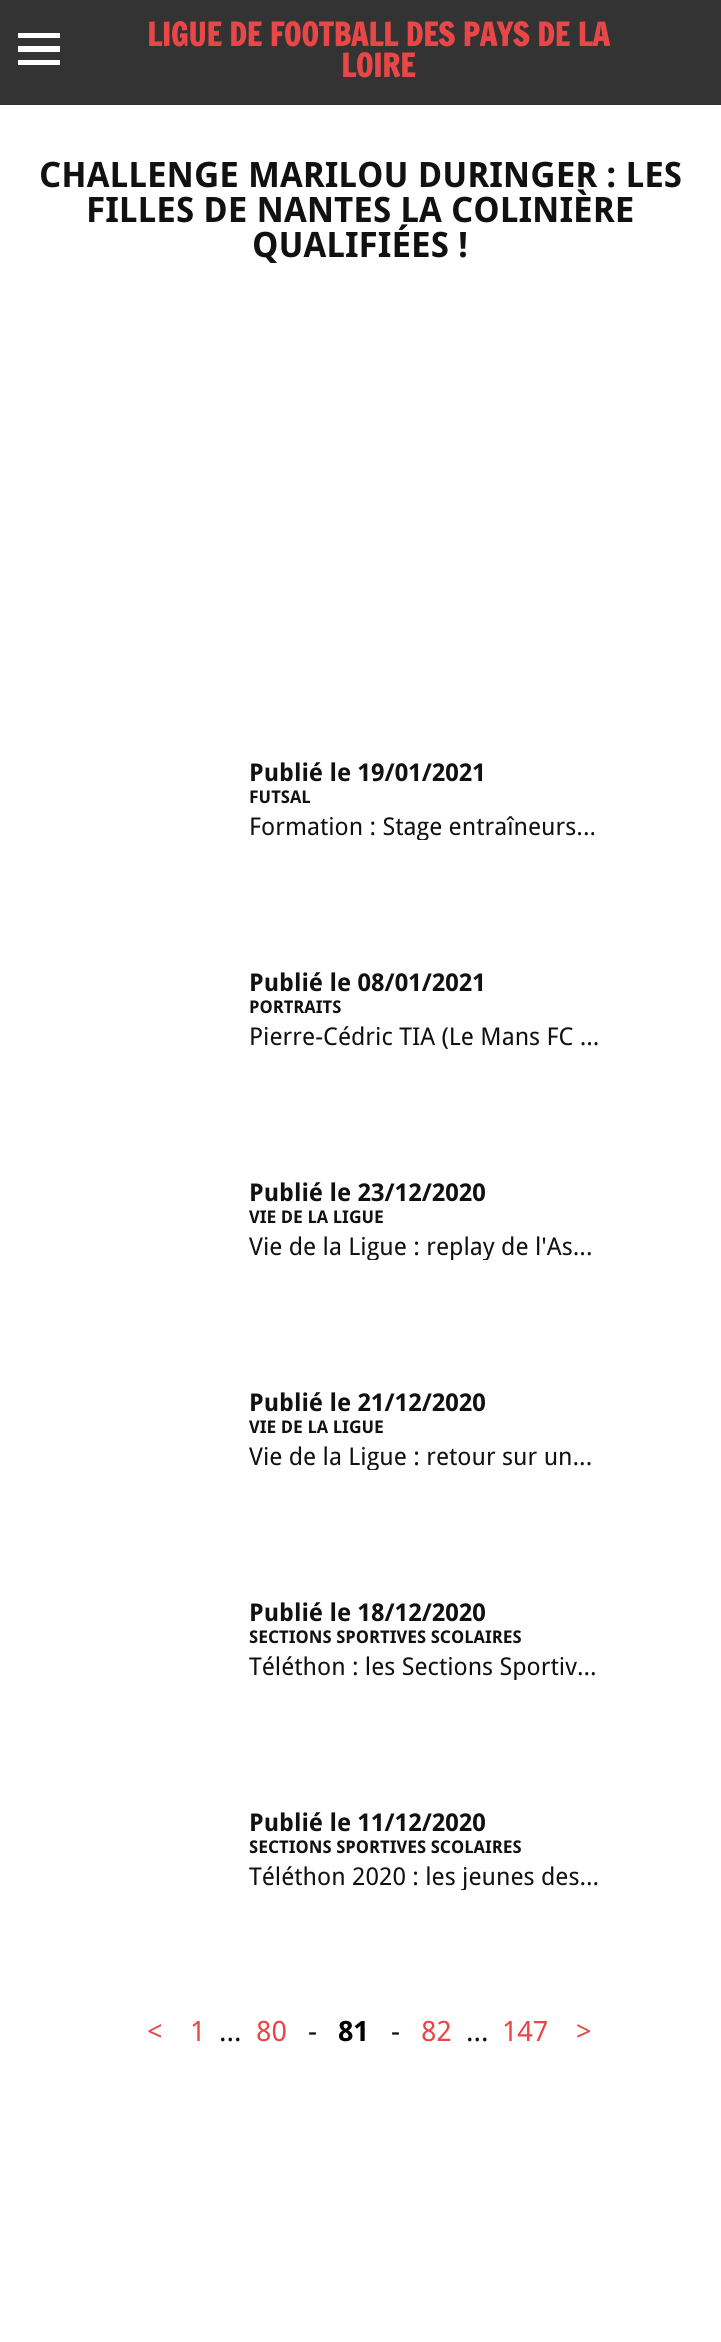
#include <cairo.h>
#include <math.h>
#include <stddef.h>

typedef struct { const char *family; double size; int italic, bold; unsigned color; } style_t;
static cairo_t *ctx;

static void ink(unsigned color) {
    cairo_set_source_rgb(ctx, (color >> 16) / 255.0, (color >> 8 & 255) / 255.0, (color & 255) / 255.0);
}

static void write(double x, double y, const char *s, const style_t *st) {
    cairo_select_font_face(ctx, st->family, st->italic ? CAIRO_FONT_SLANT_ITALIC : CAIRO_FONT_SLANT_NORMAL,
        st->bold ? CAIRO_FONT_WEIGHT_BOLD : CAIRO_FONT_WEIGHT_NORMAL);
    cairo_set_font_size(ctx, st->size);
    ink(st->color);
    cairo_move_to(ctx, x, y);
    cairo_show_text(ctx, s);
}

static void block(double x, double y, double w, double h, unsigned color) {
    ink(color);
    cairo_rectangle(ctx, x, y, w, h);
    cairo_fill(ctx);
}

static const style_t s1 = {"Francois One", 31.5, 0, 1, 0xe84747};
static const style_t s2 = {"Droid Sans", 35, 0, 1, 0x111111};
static const style_t s3 = {"Droid Sans", 24.5, 0, 1, 0x111111};
static const style_t s4 = {"Droid Sans", 17.5, 0, 1, 0x111111};
static const style_t s5 = {"Droid Sans", 24.5, 0, 0, 0x111111};
static const style_t s6 = {"Droid Sans", 28, 0, 0, 0xe84747};
static const style_t s7 = {"Droid Sans", 28, 0, 0, 0x111111};
static const style_t s8 = {"Droid Sans", 28, 0, 1, 0x000000};

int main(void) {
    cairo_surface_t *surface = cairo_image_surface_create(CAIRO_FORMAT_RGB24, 721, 2342);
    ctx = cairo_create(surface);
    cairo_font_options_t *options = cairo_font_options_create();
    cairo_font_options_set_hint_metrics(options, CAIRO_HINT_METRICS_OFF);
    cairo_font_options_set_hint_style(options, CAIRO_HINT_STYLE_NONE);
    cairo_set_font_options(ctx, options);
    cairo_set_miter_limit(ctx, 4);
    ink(0xffffff);
    cairo_paint(ctx);
    block(0, 0, 721, 105, 0x333333);
    ink(0xffffff);
    cairo_new_path(ctx);
    cairo_move_to(ctx, 18, 65);
    cairo_line_to(ctx, 18, 60);
    cairo_line_to(ctx, 60, 60);
    cairo_line_to(ctx, 60, 65);
    cairo_close_path(ctx);
    cairo_move_to(ctx, 18, 33);
    cairo_line_to(ctx, 60, 33);
    cairo_line_to(ctx, 60, 38);
    cairo_line_to(ctx, 18, 38);
    cairo_close_path(ctx);
    cairo_move_to(ctx, 18, 52);
    cairo_line_to(ctx, 18, 46);
    cairo_line_to(ctx, 60, 46);
    cairo_line_to(ctx, 60, 52);
    cairo_close_path(ctx);
    cairo_fill(ctx);
    write(147, 46, "LIGUE DE FOOTBALL DES PAYS DE LA", &s1);
    write(341, 77, "LOIRE", &s1);
    write(39, 187, "CHALLENGE MARILOU DURINGER : LES", &s2);
    write(86, 222, "FILLES DE NANTES LA COLINIÈRE", &s2);
    write(252, 257, "QUALIFIÉES !", &s2);
    write(249, 781, "Publié le 19/01/2021", &s3);
    write(249, 803, "FUTSAL", &s4);
    cairo_save(ctx);
    cairo_rectangle(ctx, 249, 812, 351, 28);
    cairo_clip(ctx);
    write(249, 835, "Formation : Stage entraîneurs...", &s5);
    cairo_restore(ctx);
    write(249, 991, "Publié le 08/01/2021", &s3);
    write(249, 1013, "PORTRAITS", &s4);
    write(249, 1045, "Pierre-Cédric TIA (Le Mans FC ...", &s5);
    write(249, 1201, "Publié le 23/12/2020", &s3);
    write(249, 1223, "VIE DE LA LIGUE", &s4);
    cairo_save(ctx);
    cairo_rectangle(ctx, 249, 1232, 351, 28);
    cairo_clip(ctx);
    write(249, 1255, "Vie de la Ligue : replay de l'As...", &s5);
    cairo_restore(ctx);
    write(249, 1411, "Publié le 21/12/2020", &s3);
    write(249, 1433, "VIE DE LA LIGUE", &s4);
    cairo_save(ctx);
    cairo_rectangle(ctx, 249, 1442, 351, 28);
    cairo_clip(ctx);
    write(249, 1465, "Vie de la Ligue : retour sur un...", &s5);
    cairo_restore(ctx);
    write(249, 1621, "Publié le 18/12/2020", &s3);
    write(249, 1643, "SECTIONS SPORTIVES SCOLAIRES", &s4);
    cairo_save(ctx);
    cairo_rectangle(ctx, 249, 1652, 351, 28);
    cairo_clip(ctx);
    write(249, 1675, "Téléthon : les Sections Sportiv...", &s5);
    cairo_restore(ctx);
    write(249, 1831, "Publié le 11/12/2020", &s3);
    write(249, 1853, "SECTIONS SPORTIVES SCOLAIRES", &s4);
    cairo_save(ctx);
    cairo_rectangle(ctx, 249, 1862, 351, 28);
    cairo_clip(ctx);
    write(249, 1885, "Téléthon 2020 : les jeunes des...", &s5);
    cairo_restore(ctx);
    write(147, 2041, "<", &s6);
    write(190, 2041, "1", &s6);
    write(256, 2041, "80", &s6);
    write(308, 2041, "-", &s7);
    write(338, 2041, "81", &s8);
    write(391, 2041, "-", &s7);
    write(421, 2041, "82", &s6);
    write(502, 2041, "147", &s6);
    write(576, 2041, ">", &s6);
    write(219, 2041, "...", &s7);
    write(466, 2041, "...", &s7);
    cairo_surface_write_to_png(surface, "screenshot.png");
    cairo_font_options_destroy(options);
    cairo_destroy(ctx);
    cairo_surface_destroy(surface);
    return 0;
}
